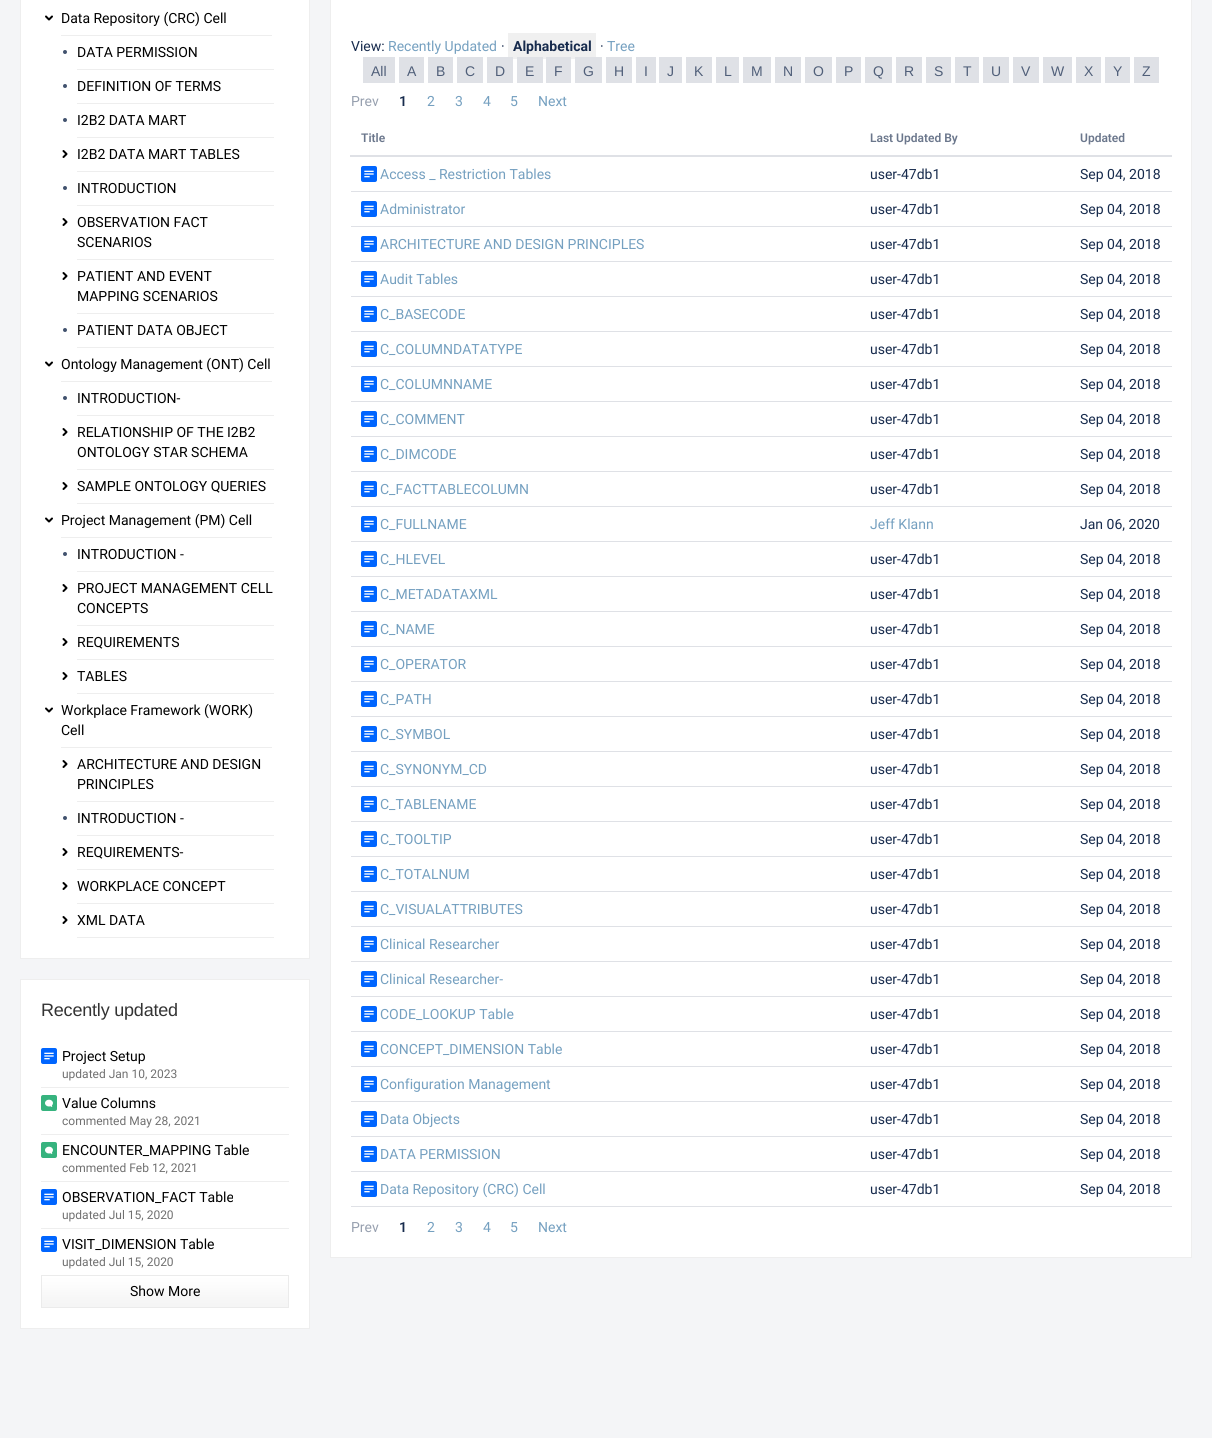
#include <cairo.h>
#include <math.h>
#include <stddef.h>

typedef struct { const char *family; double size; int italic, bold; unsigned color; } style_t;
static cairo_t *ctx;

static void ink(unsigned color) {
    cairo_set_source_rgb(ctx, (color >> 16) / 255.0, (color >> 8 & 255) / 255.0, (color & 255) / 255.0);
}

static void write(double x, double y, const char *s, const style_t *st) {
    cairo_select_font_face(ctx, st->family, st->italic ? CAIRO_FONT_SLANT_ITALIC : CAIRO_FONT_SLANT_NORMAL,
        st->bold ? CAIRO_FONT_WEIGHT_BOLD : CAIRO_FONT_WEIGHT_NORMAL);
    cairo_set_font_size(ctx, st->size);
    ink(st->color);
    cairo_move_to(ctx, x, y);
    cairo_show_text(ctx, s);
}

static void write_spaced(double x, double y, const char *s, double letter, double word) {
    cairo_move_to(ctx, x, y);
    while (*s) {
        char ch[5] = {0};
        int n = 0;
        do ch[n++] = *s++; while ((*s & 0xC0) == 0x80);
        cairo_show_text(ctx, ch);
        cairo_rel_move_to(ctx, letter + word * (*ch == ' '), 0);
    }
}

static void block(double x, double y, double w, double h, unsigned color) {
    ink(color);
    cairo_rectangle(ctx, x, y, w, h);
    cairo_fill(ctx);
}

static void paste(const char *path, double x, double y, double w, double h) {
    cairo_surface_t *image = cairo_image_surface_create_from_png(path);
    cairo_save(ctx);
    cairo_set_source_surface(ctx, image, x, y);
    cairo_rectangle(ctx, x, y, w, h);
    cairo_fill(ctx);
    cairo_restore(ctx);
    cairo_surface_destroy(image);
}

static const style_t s1 = {"Roboto", 14, 0, 0, 0x000000};
static const style_t s2 = {"Roboto", 12, 0, 0, 0x707070};
static const style_t s3 = {"Roboto", 14, 0, 0, 0x172b4d};
static const style_t s4 = {"Roboto", 14, 0, 0, 0x75a0c0};
static const style_t s5 = {"Roboto", 14, 0, 1, 0x172b4d};
static const style_t s6 = {"Liberation Sans", 14, 0, 0, 0x505f79};
static const style_t s7 = {"Roboto", 14, 0, 0, 0x97a0af};
static const style_t s8 = {"Roboto SemiBold", 14, 0, 0, 0x172b4d};
static const style_t s9 = {"Roboto SemiBold", 12, 0, 0, 0x6b778c};

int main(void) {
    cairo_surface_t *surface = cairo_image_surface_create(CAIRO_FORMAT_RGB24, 1212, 1438);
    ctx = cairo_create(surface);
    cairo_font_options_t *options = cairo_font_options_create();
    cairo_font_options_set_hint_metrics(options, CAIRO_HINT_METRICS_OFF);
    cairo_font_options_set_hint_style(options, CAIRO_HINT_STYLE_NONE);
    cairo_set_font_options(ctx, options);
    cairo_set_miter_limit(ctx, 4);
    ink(0xf4f5f7);
    cairo_paint(ctx);
    ink(0xffffff);
    cairo_rectangle(ctx, 20.5, -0.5, 289, 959);
    cairo_fill_preserve(ctx);
    ink(0xeeeeee);
    cairo_set_line_width(ctx, 1);
    cairo_stroke(ctx);
    paste("pic1.png", 45, 15, 8, 6);
    block(61, 35, 211, 1, 0xeeeeee);
    write(61, 23, "Data Repository (CRC) Cell", &s1);
    ink(0x42526e);
    cairo_new_path(ctx);
    cairo_arc(ctx, 65, 52, 2, 0, 2 * M_PI);
    cairo_fill(ctx);
    block(77, 69, 197, 1, 0xeeeeee);
    write(77, 57, "DATA PERMISSION", &s1);
    ink(0x42526e);
    cairo_new_path(ctx);
    cairo_arc(ctx, 65, 86, 2, 0, 2 * M_PI);
    cairo_fill(ctx);
    block(77, 103, 197, 1, 0xeeeeee);
    write(77, 91, "DEFINITION OF TERMS", &s1);
    ink(0x42526e);
    cairo_new_path(ctx);
    cairo_arc(ctx, 65, 120, 2, 0, 2 * M_PI);
    cairo_fill(ctx);
    block(77, 137, 197, 1, 0xeeeeee);
    write(77, 125, "I2B2 DATA MART", &s1);
    paste("pic2.png", 62, 150, 6, 8);
    block(77, 171, 197, 1, 0xeeeeee);
    write(77, 159, "I2B2 DATA MART TABLES", &s1);
    ink(0x42526e);
    cairo_new_path(ctx);
    cairo_arc(ctx, 65, 188, 2, 0, 2 * M_PI);
    cairo_fill(ctx);
    block(77, 205, 197, 1, 0xeeeeee);
    write(77, 193, "INTRODUCTION", &s1);
    paste("pic2.png", 62, 218, 6, 8);
    block(77, 259, 197, 1, 0xeeeeee);
    write(77, 227, "OBSERVATION FACT", &s1);
    write(77, 247, "SCENARIOS", &s1);
    paste("pic2.png", 62, 272, 6, 8);
    block(77, 313, 197, 1, 0xeeeeee);
    write(77, 281, "PATIENT AND EVENT", &s1);
    write(77, 301, "MAPPING SCENARIOS", &s1);
    ink(0x42526e);
    cairo_new_path(ctx);
    cairo_arc(ctx, 65, 330, 2, 0, 2 * M_PI);
    cairo_fill(ctx);
    block(77, 347, 197, 1, 0xeeeeee);
    write(77, 335, "PATIENT DATA OBJECT", &s1);
    paste("pic1.png", 45, 361, 8, 6);
    block(61, 381, 211, 1, 0xeeeeee);
    write(61, 369, "Ontology Management (ONT) Cell", &s1);
    ink(0x42526e);
    cairo_new_path(ctx);
    cairo_arc(ctx, 65, 398, 2, 0, 2 * M_PI);
    cairo_fill(ctx);
    block(77, 415, 197, 1, 0xeeeeee);
    write(77, 403, "INTRODUCTION-", &s1);
    paste("pic2.png", 62, 428, 6, 8);
    block(77, 469, 197, 1, 0xeeeeee);
    write(77, 437, "RELATIONSHIP OF THE I2B2", &s1);
    write(77, 457, "ONTOLOGY STAR SCHEMA", &s1);
    paste("pic2.png", 62, 482, 6, 8);
    block(77, 503, 197, 1, 0xeeeeee);
    write(77, 491, "SAMPLE ONTOLOGY QUERIES", &s1);
    paste("pic1.png", 45, 517, 8, 6);
    block(61, 537, 211, 1, 0xeeeeee);
    write(61, 525, "Project Management (PM) Cell", &s1);
    ink(0x42526e);
    cairo_new_path(ctx);
    cairo_arc(ctx, 65, 554, 2, 0, 2 * M_PI);
    cairo_fill(ctx);
    block(77, 571, 197, 1, 0xeeeeee);
    write(77, 559, "INTRODUCTION -", &s1);
    paste("pic2.png", 62, 584, 6, 8);
    block(77, 625, 197, 1, 0xeeeeee);
    write(77, 593, "PROJECT MANAGEMENT CELL", &s1);
    write(77, 613, "CONCEPTS", &s1);
    paste("pic2.png", 62, 638, 6, 8);
    block(77, 659, 197, 1, 0xeeeeee);
    write(77, 647, "REQUIREMENTS", &s1);
    paste("pic2.png", 62, 672, 6, 8);
    block(77, 693, 197, 1, 0xeeeeee);
    write(77, 681, "TABLES", &s1);
    paste("pic1.png", 45, 707, 8, 6);
    block(61, 747, 211, 1, 0xeeeeee);
    write(61, 715, "Workplace Framework (WORK)", &s1);
    write(61, 735, "Cell", &s1);
    paste("pic2.png", 62, 760, 6, 8);
    block(77, 801, 197, 1, 0xeeeeee);
    write(77, 769, "ARCHITECTURE AND DESIGN", &s1);
    write(77, 789, "PRINCIPLES", &s1);
    ink(0x42526e);
    cairo_new_path(ctx);
    cairo_arc(ctx, 65, 818, 2, 0, 2 * M_PI);
    cairo_fill(ctx);
    block(77, 835, 197, 1, 0xeeeeee);
    write(77, 823, "INTRODUCTION -", &s1);
    paste("pic2.png", 62, 848, 6, 8);
    block(77, 869, 197, 1, 0xeeeeee);
    write(77, 857, "REQUIREMENTS-", &s1);
    paste("pic2.png", 62, 882, 6, 8);
    block(77, 903, 197, 1, 0xeeeeee);
    write(77, 891, "WORKPLACE CONCEPT", &s1);
    paste("pic2.png", 62, 916, 6, 8);
    block(77, 937, 197, 1, 0xeeeeee);
    write(77, 925, "XML DATA", &s1);
    ink(0xffffff);
    cairo_rectangle(ctx, 20.5, 979.5, 289, 349);
    cairo_fill_preserve(ctx);
    ink(0xeeeeee);
    cairo_stroke(ctx);
    cairo_select_font_face(ctx, "Liberation Sans", CAIRO_FONT_SLANT_NORMAL, CAIRO_FONT_WEIGHT_NORMAL);
    cairo_set_font_size(ctx, 18);
    ink(0x333333);
    write_spaced(41, 1016, "Recently updated", -0.2, 0);
    block(41, 1087, 248, 1, 0xeeeeee);
    paste("pic3.png", 41, 1048, 16, 16);
    write(62, 1061, "Project Setup", &s1);
    write(62, 1078, "updated Jan 10, 2023", &s2);
    block(41, 1134, 248, 1, 0xeeeeee);
    paste("pic4.png", 41, 1095, 16, 16);
    write(62, 1108, "Value Columns", &s1);
    write(62, 1125, "commented May 28, 2021", &s2);
    block(41, 1181, 248, 1, 0xeeeeee);
    paste("pic4.png", 41, 1142, 16, 16);
    write(62, 1155, "ENCOUNTER_MAPPING Table", &s1);
    write(62, 1172, "commented Feb 12, 2021", &s2);
    block(41, 1228, 248, 1, 0xeeeeee);
    paste("pic3.png", 41, 1189, 16, 16);
    write(62, 1202, "OBSERVATION_FACT Table", &s1);
    write(62, 1219, "updated Jul 15, 2020", &s2);
    paste("pic3.png", 41, 1236, 16, 16);
    write(62, 1249, "VISIT_DIMENSION Table", &s1);
    write(62, 1266, "updated Jul 15, 2020", &s2);
    paste("pic5.png", 42, 1276, 246, 31);
    cairo_rectangle(ctx, 41.5, 1275.5, 247, 32);
    ink(0xebebeb);
    cairo_stroke(ctx);
    write(130, 1296, "Show More", &s1);
    ink(0xffffff);
    cairo_rectangle(ctx, 330.5, -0.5, 861, 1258);
    cairo_fill_preserve(ctx);
    ink(0xeeeeee);
    cairo_stroke(ctx);
    write(351, 51, "View:", &s3);
    write(388, 51, "Recently Updated", &s4);
    write(501, 51, "·", &s3);
    block(508, 33, 88, 26, 0xf0f0f0);
    write(513, 51, "Alphabetical", &s5);
    write(600, 51, "·", &s3);
    write(607, 51, "Tree", &s4);
    block(363, 57, 32, 26, 0xdfe1e6);
    write(371, 76, "All", &s6);
    block(399, 57, 25, 26, 0xdfe1e6);
    write(407, 76, "A", &s6);
    block(428, 57, 25, 26, 0xdfe1e6);
    write(436, 76, "B", &s6);
    block(457, 57, 26, 26, 0xdfe1e6);
    write(465, 76, "C", &s6);
    block(487, 57, 26, 26, 0xdfe1e6);
    write(495, 76, "D", &s6);
    block(517, 57, 26, 26, 0xdfe1e6);
    write(525, 76, "E", &s6);
    block(546, 57, 25, 26, 0xdfe1e6);
    write(554, 76, "F", &s6);
    block(575, 57, 27, 26, 0xdfe1e6);
    write(583, 76, "G", &s6);
    block(606, 57, 26, 26, 0xdfe1e6);
    write(614, 76, "H", &s6);
    block(636, 57, 20, 26, 0xdfe1e6);
    write(644, 76, "I", &s6);
    block(659, 57, 23, 26, 0xdfe1e6);
    write(667, 76, "J", &s6);
    block(686, 57, 26, 26, 0xdfe1e6);
    write(694, 76, "K", &s6);
    block(716, 57, 23, 26, 0xdfe1e6);
    write(724, 76, "L", &s6);
    block(743, 57, 28, 26, 0xdfe1e6);
    write(751, 76, "M", &s6);
    block(775, 57, 26, 26, 0xdfe1e6);
    write(783, 76, "N", &s6);
    block(805, 57, 27, 26, 0xdfe1e6);
    write(813, 76, "O", &s6);
    block(836, 57, 25, 26, 0xdfe1e6);
    write(844, 76, "P", &s6);
    block(865, 57, 27, 26, 0xdfe1e6);
    write(873, 76, "Q", &s6);
    block(896, 57, 26, 26, 0xdfe1e6);
    write(904, 76, "R", &s6);
    block(926, 57, 25, 26, 0xdfe1e6);
    write(934, 76, "S", &s6);
    block(955, 57, 24, 26, 0xdfe1e6);
    write(963, 76, "T", &s6);
    block(983, 57, 26, 26, 0xdfe1e6);
    write(991, 76, "U", &s6);
    block(1013, 57, 26, 26, 0xdfe1e6);
    write(1021, 76, "V", &s6);
    block(1043, 57, 29, 26, 0xdfe1e6);
    write(1051, 76, "W", &s6);
    block(1076, 57, 25, 26, 0xdfe1e6);
    write(1084, 76, "X", &s6);
    block(1105, 57, 25, 26, 0xdfe1e6);
    write(1113, 76, "Y", &s6);
    block(1134, 57, 25, 26, 0xdfe1e6);
    write(1142, 76, "Z", &s6);
    write(351, 106, "Prev", &s7);
    write(399, 106, "1", &s8);
    write(427, 106, "2", &s4);
    write(455, 106, "3", &s4);
    write(483, 106, "4", &s4);
    write(510, 106, "5", &s4);
    write(538, 106, "Next", &s4);
    block(350, 155, 822, 2, 0xdfe1e6);
    write(361, 142, "Title", &s9);
    write(870, 142, "Last Updated By", &s9);
    write(1080, 142, "Updated", &s9);
    paste("pic3.png", 361, 166, 16, 16);
    write(380, 179, "Access _ Restriction Tables", &s4);
    write(870, 179, "user-47db1", &s3);
    block(351, 191, 821, 1, 0xdfe1e6);
    write(1080, 179, "Sep 04, 2018", &s3);
    paste("pic3.png", 361, 201, 16, 16);
    write(380, 214, "Administrator", &s4);
    write(870, 214, "user-47db1", &s3);
    block(351, 226, 821, 1, 0xdfe1e6);
    write(1080, 214, "Sep 04, 2018", &s3);
    paste("pic3.png", 361, 236, 16, 16);
    write(380, 249, "ARCHITECTURE AND DESIGN PRINCIPLES", &s4);
    write(870, 249, "user-47db1", &s3);
    block(351, 261, 821, 1, 0xdfe1e6);
    write(1080, 249, "Sep 04, 2018", &s3);
    paste("pic3.png", 361, 271, 16, 16);
    write(380, 284, "Audit Tables", &s4);
    write(870, 284, "user-47db1", &s3);
    block(351, 296, 821, 1, 0xdfe1e6);
    write(1080, 284, "Sep 04, 2018", &s3);
    paste("pic3.png", 361, 306, 16, 16);
    write(380, 319, "C_BASECODE", &s4);
    write(870, 319, "user-47db1", &s3);
    block(351, 331, 821, 1, 0xdfe1e6);
    write(1080, 319, "Sep 04, 2018", &s3);
    paste("pic3.png", 361, 341, 16, 16);
    write(380, 354, "C_COLUMNDATATYPE", &s4);
    write(870, 354, "user-47db1", &s3);
    block(351, 366, 821, 1, 0xdfe1e6);
    write(1080, 354, "Sep 04, 2018", &s3);
    paste("pic3.png", 361, 376, 16, 16);
    write(380, 389, "C_COLUMNNAME", &s4);
    write(870, 389, "user-47db1", &s3);
    block(351, 401, 821, 1, 0xdfe1e6);
    write(1080, 389, "Sep 04, 2018", &s3);
    paste("pic3.png", 361, 411, 16, 16);
    write(380, 424, "C_COMMENT", &s4);
    write(870, 424, "user-47db1", &s3);
    block(351, 436, 821, 1, 0xdfe1e6);
    write(1080, 424, "Sep 04, 2018", &s3);
    paste("pic3.png", 361, 446, 16, 16);
    write(380, 459, "C_DIMCODE", &s4);
    write(870, 459, "user-47db1", &s3);
    block(351, 471, 821, 1, 0xdfe1e6);
    write(1080, 459, "Sep 04, 2018", &s3);
    paste("pic3.png", 361, 481, 16, 16);
    write(380, 494, "C_FACTTABLECOLUMN", &s4);
    write(870, 494, "user-47db1", &s3);
    block(351, 506, 821, 1, 0xdfe1e6);
    write(1080, 494, "Sep 04, 2018", &s3);
    paste("pic3.png", 361, 516, 16, 16);
    write(380, 529, "C_FULLNAME", &s4);
    write(870, 529, "Jeff Klann", &s4);
    block(351, 541, 821, 1, 0xdfe1e6);
    write(1080, 529, "Jan 06, 2020", &s3);
    paste("pic3.png", 361, 551, 16, 16);
    write(380, 564, "C_HLEVEL", &s4);
    write(870, 564, "user-47db1", &s3);
    block(351, 576, 821, 1, 0xdfe1e6);
    write(1080, 564, "Sep 04, 2018", &s3);
    paste("pic3.png", 361, 586, 16, 16);
    write(380, 599, "C_METADATAXML", &s4);
    write(870, 599, "user-47db1", &s3);
    block(351, 611, 821, 1, 0xdfe1e6);
    write(1080, 599, "Sep 04, 2018", &s3);
    paste("pic3.png", 361, 621, 16, 16);
    write(380, 634, "C_NAME", &s4);
    write(870, 634, "user-47db1", &s3);
    block(351, 646, 821, 1, 0xdfe1e6);
    write(1080, 634, "Sep 04, 2018", &s3);
    paste("pic3.png", 361, 656, 16, 16);
    write(380, 669, "C_OPERATOR", &s4);
    write(870, 669, "user-47db1", &s3);
    block(351, 681, 821, 1, 0xdfe1e6);
    write(1080, 669, "Sep 04, 2018", &s3);
    paste("pic3.png", 361, 691, 16, 16);
    write(380, 704, "C_PATH", &s4);
    write(870, 704, "user-47db1", &s3);
    block(351, 716, 821, 1, 0xdfe1e6);
    write(1080, 704, "Sep 04, 2018", &s3);
    paste("pic3.png", 361, 726, 16, 16);
    write(380, 739, "C_SYMBOL", &s4);
    write(870, 739, "user-47db1", &s3);
    block(351, 751, 821, 1, 0xdfe1e6);
    write(1080, 739, "Sep 04, 2018", &s3);
    paste("pic3.png", 361, 761, 16, 16);
    write(380, 774, "C_SYNONYM_CD", &s4);
    write(870, 774, "user-47db1", &s3);
    block(351, 786, 821, 1, 0xdfe1e6);
    write(1080, 774, "Sep 04, 2018", &s3);
    paste("pic3.png", 361, 796, 16, 16);
    write(380, 809, "C_TABLENAME", &s4);
    write(870, 809, "user-47db1", &s3);
    block(351, 821, 821, 1, 0xdfe1e6);
    write(1080, 809, "Sep 04, 2018", &s3);
    paste("pic3.png", 361, 831, 16, 16);
    write(380, 844, "C_TOOLTIP", &s4);
    write(870, 844, "user-47db1", &s3);
    block(351, 856, 821, 1, 0xdfe1e6);
    write(1080, 844, "Sep 04, 2018", &s3);
    paste("pic3.png", 361, 866, 16, 16);
    write(380, 879, "C_TOTALNUM", &s4);
    write(870, 879, "user-47db1", &s3);
    block(351, 891, 821, 1, 0xdfe1e6);
    write(1080, 879, "Sep 04, 2018", &s3);
    paste("pic3.png", 361, 901, 16, 16);
    write(380, 914, "C_VISUALATTRIBUTES", &s4);
    write(870, 914, "user-47db1", &s3);
    block(351, 926, 821, 1, 0xdfe1e6);
    write(1080, 914, "Sep 04, 2018", &s3);
    paste("pic3.png", 361, 936, 16, 16);
    write(380, 949, "Clinical Researcher", &s4);
    write(870, 949, "user-47db1", &s3);
    block(351, 961, 821, 1, 0xdfe1e6);
    write(1080, 949, "Sep 04, 2018", &s3);
    paste("pic3.png", 361, 971, 16, 16);
    write(380, 984, "Clinical Researcher-", &s4);
    write(870, 984, "user-47db1", &s3);
    block(351, 996, 821, 1, 0xdfe1e6);
    write(1080, 984, "Sep 04, 2018", &s3);
    paste("pic3.png", 361, 1006, 16, 16);
    write(380, 1019, "CODE_LOOKUP Table", &s4);
    write(870, 1019, "user-47db1", &s3);
    block(351, 1031, 821, 1, 0xdfe1e6);
    write(1080, 1019, "Sep 04, 2018", &s3);
    paste("pic3.png", 361, 1041, 16, 16);
    write(380, 1054, "CONCEPT_DIMENSION Table", &s4);
    write(870, 1054, "user-47db1", &s3);
    block(351, 1066, 821, 1, 0xdfe1e6);
    write(1080, 1054, "Sep 04, 2018", &s3);
    paste("pic3.png", 361, 1076, 16, 16);
    write(380, 1089, "Configuration Management", &s4);
    write(870, 1089, "user-47db1", &s3);
    block(351, 1101, 821, 1, 0xdfe1e6);
    write(1080, 1089, "Sep 04, 2018", &s3);
    paste("pic3.png", 361, 1111, 16, 16);
    write(380, 1124, "Data Objects", &s4);
    write(870, 1124, "user-47db1", &s3);
    block(351, 1136, 821, 1, 0xdfe1e6);
    write(1080, 1124, "Sep 04, 2018", &s3);
    paste("pic3.png", 361, 1146, 16, 16);
    write(380, 1159, "DATA PERMISSION", &s4);
    write(870, 1159, "user-47db1", &s3);
    block(351, 1171, 821, 1, 0xdfe1e6);
    write(1080, 1159, "Sep 04, 2018", &s3);
    paste("pic3.png", 361, 1181, 16, 16);
    write(380, 1194, "Data Repository (CRC) Cell", &s4);
    write(870, 1194, "user-47db1", &s3);
    block(351, 1206, 821, 1, 0xdfe1e6);
    write(1080, 1194, "Sep 04, 2018", &s3);
    write(351, 1232, "Prev", &s7);
    write(399, 1232, "1", &s8);
    write(427, 1232, "2", &s4);
    write(455, 1232, "3", &s4);
    write(483, 1232, "4", &s4);
    write(510, 1232, "5", &s4);
    write(538, 1232, "Next", &s4);
    cairo_surface_write_to_png(surface, "screenshot.png");
    cairo_font_options_destroy(options);
    cairo_destroy(ctx);
    cairo_surface_destroy(surface);
    return 0;
}
